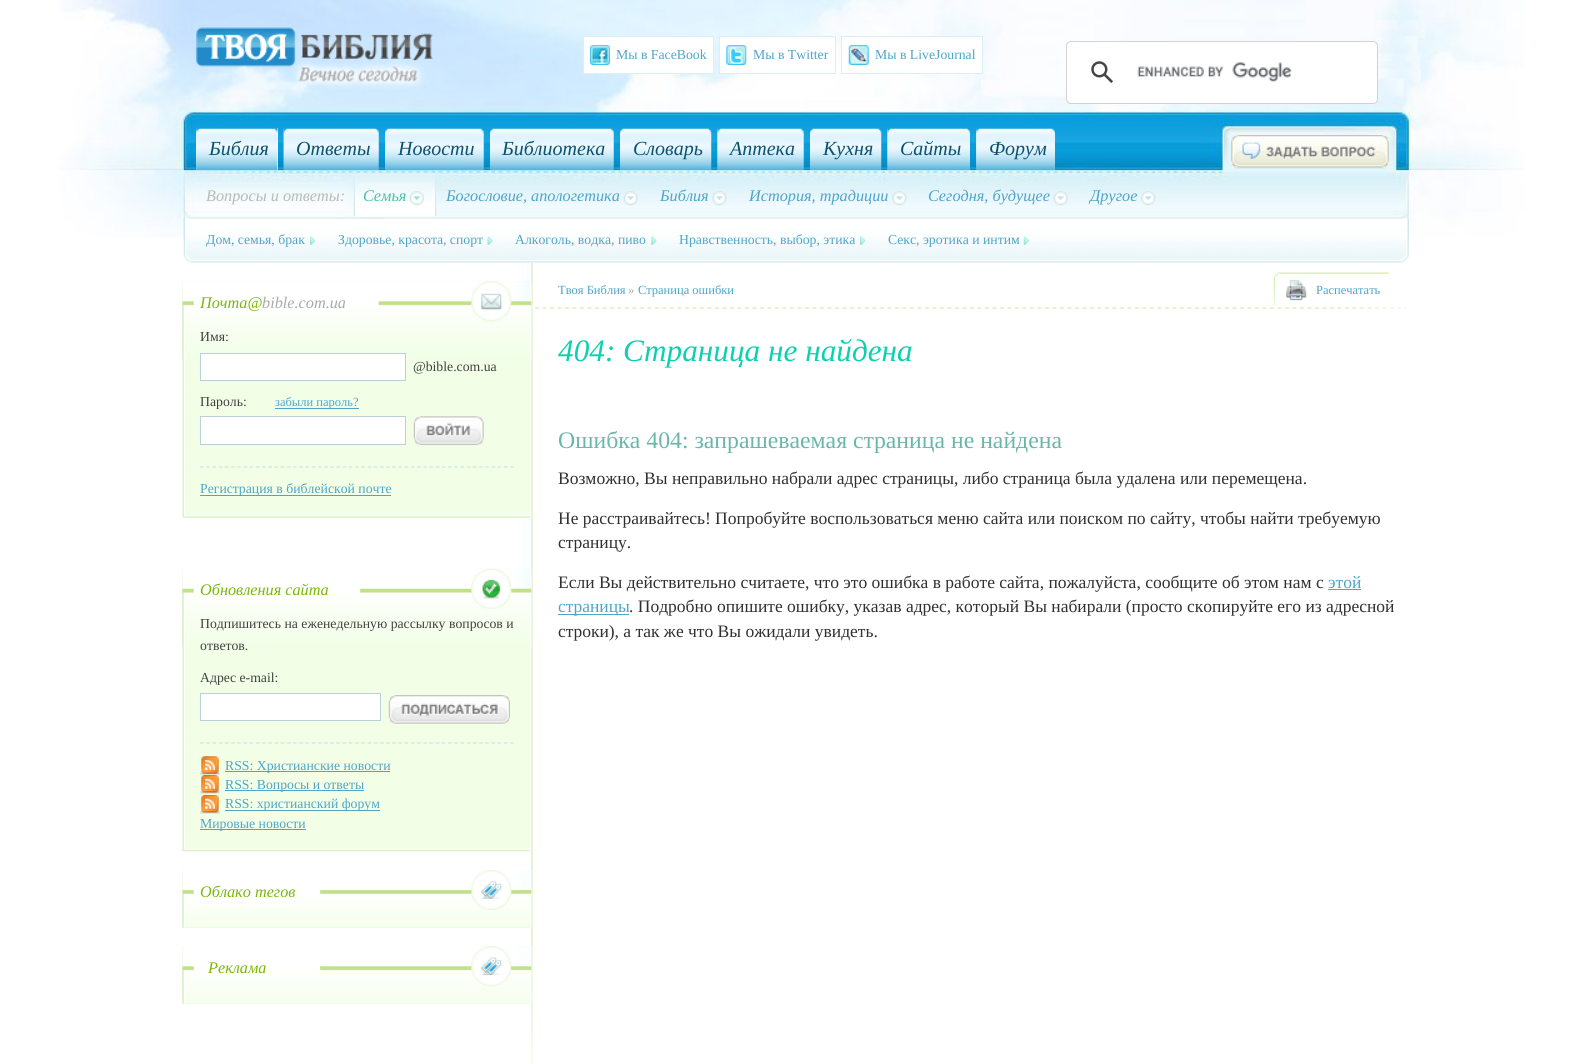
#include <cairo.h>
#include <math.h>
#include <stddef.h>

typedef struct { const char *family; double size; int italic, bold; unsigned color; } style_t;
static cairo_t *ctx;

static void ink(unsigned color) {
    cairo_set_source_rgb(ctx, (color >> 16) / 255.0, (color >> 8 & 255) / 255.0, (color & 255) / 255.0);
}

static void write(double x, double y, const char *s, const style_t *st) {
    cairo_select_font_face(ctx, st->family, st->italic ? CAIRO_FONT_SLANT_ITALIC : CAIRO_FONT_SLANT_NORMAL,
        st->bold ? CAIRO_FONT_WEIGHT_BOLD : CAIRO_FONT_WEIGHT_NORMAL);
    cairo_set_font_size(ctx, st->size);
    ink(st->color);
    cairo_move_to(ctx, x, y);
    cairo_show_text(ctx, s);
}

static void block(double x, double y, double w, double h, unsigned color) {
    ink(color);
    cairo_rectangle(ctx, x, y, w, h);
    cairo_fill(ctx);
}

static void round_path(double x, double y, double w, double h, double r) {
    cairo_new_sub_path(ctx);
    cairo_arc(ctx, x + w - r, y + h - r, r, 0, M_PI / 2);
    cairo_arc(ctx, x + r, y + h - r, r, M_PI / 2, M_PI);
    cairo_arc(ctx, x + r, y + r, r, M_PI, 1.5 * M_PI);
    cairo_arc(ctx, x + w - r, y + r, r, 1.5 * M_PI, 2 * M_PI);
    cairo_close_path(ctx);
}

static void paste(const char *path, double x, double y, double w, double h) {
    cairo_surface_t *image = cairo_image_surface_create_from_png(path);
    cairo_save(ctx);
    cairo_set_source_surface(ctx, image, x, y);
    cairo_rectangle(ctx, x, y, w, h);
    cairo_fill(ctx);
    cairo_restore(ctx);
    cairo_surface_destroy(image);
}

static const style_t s1 = {"Liberation Serif", 13.75, 0, 0, 0x4ea5ca};
static const style_t s2 = {"Liberation Serif", 20, 1, 0, 0x0b5270};
static const style_t s3 = {"Liberation Serif", 16.25, 1, 0, 0xb9b9b9};
static const style_t s4 = {"Liberation Serif", 16.25, 1, 0, 0x43c1ac};
static const style_t s5 = {"Liberation Serif", 16.25, 1, 0, 0x4ea5ca};
static const style_t s6 = {"Liberation Serif", 16.25, 1, 0, 0x78b809};
static const style_t s7 = {"Liberation Serif", 16.25, 1, 0, 0xa9a9a9};
static const style_t s8 = {"Liberation Serif", 13.75, 0, 0, 0x414141};
static const style_t s9 = {"Liberation Serif", 12.5, 0, 0, 0x4ea5ca};
static const style_t s10 = {"Liberation Serif", 12.5, 0, 0, 0xa9a9a9};
static const style_t s11 = {"Liberation Serif", 31.25, 1, 0, 0x0ed0ae};
static const style_t s12 = {"Liberation Serif", 23.75, 0, 0, 0x6ab7aa};
static const style_t s13 = {"Liberation Serif", 17.5, 0, 0, 0x303030};
static const style_t s14 = {"Liberation Serif", 17.5, 0, 0, 0x4ea5ca};

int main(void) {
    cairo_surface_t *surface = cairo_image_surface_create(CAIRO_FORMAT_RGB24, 1589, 1064);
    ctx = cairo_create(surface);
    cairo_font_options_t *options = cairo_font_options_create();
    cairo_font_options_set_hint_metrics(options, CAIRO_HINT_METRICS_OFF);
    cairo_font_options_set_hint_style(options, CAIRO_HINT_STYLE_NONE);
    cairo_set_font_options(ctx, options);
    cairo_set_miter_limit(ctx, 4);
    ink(0xffffff);
    cairo_paint(ctx);
    paste("pic1.png", 59, 0, 1466, 238);
    paste("pic2.png", 196, 27, 237, 63);
    ink(0xffffff);
    cairo_rectangle(ctx, 583.5, 36.5, 130, 37);
    cairo_fill_preserve(ctx);
    ink(0xdeeff2);
    cairo_set_line_width(ctx, 1);
    cairo_stroke(ctx);
    paste("pic3.png", 590, 45, 20, 20);
    write(616, 59, "Мы в FaceBook", &s1);
    ink(0xffffff);
    cairo_rectangle(ctx, 719.5, 36.5, 116, 37);
    cairo_fill_preserve(ctx);
    ink(0xdeeff2);
    cairo_stroke(ctx);
    paste("pic4.png", 726, 45, 21, 20);
    write(753, 59, "Мы в Twitter", &s1);
    ink(0xffffff);
    cairo_rectangle(ctx, 841.5, 36.5, 141, 37);
    cairo_fill_preserve(ctx);
    ink(0xdeeff2);
    cairo_stroke(ctx);
    paste("pic5.png", 848, 45, 21, 20);
    write(875, 59, "Мы в LiveJournal", &s1);
    ink(0xffffff);
    round_path(1066.5, 41.5, 311, 62, 4.5);
    cairo_fill_preserve(ctx);
    ink(0xd2d2d2);
    cairo_stroke(ctx);
    paste("pic6.png", 1091, 61, 22, 22);
    paste("pic7.png", 1137, 62, 155, 20);
    block(196, 128, 82, 42, 0xffffff);
    paste("pic8.png", 196, 128, 82, 42);
    paste("pic9.png", 196, 128, 5, 42);
    write(209, 155, "Библия", &s2);
    paste("pic10.png", 283, 128, 96, 42);
    paste("pic11.png", 283, 128, 5, 42);
    write(296, 155, "Ответы", &s2);
    paste("pic12.png", 385, 128, 99, 42);
    paste("pic13.png", 385, 128, 4, 6);
    write(398, 155, "Новости", &s2);
    paste("pic14.png", 490, 128, 124, 42);
    paste("pic15.png", 490, 128, 4, 6);
    write(502, 155, "Библиотека", &s2);
    paste("pic16.png", 620, 128, 92, 42);
    paste("pic13.png", 620, 128, 4, 6);
    write(633, 155, "Словарь", &s2);
    paste("pic17.png", 717, 128, 87, 42);
    paste("pic18.png", 717, 128, 5, 42);
    write(730, 155, "Аптека", &s2);
    paste("pic19.png", 810, 128, 72, 42);
    paste("pic15.png", 810, 128, 4, 6);
    write(823, 155, "Кухня", &s2);
    paste("pic20.png", 887, 128, 83, 42);
    paste("pic21.png", 887, 128, 5, 42);
    write(900, 155, "Сайты", &s2);
    paste("pic22.png", 976, 128, 79, 42);
    paste("pic9.png", 976, 128, 5, 42);
    write(989, 155, "Форум", &s2);
    paste("pic23.png", 1231, 135, 158, 34);
    write(206, 201, "Вопросы и ответы:", &s3);
    paste("pic24.png", 354, 173, 83, 44);
    paste("pic25.png", 353, 174, 6, 43);
    write(363, 201, "Семья", &s4);
    paste("pic26.png", 621, 173, 28, 33);
    write(446, 201, "Богословие, апологетика", &s5);
    paste("pic27.png", 710, 174, 29, 32);
    write(660, 201, "Библия", &s5);
    paste("pic28.png", 890, 173, 28, 33);
    write(749, 201, "История, традиции", &s5);
    paste("pic29.png", 1051, 173, 28, 33);
    write(928, 201, "Сегодня, будущее", &s5);
    paste("pic30.png", 1141, 174, 26, 32);
    write(1090, 201, "Другое", &s5);
    paste("pic36.png", 522, 262, 11, 802);
    paste("pic31.png", 183, 218, 1226, 45);
    paste("pic32.png", 310, 236, 5, 9);
    write(206, 244, "Дом, семья, брак", &s1);
    paste("pic33.png", 487, 236, 6, 9);
    write(338, 244, "Здоровье, красота, спорт", &s1);
    paste("pic34.png", 651, 236, 6, 9);
    write(515, 244, "Алкоголь, водка, пиво", &s1);
    paste("pic32.png", 860, 236, 5, 9);
    write(679, 244, "Нравственность, выбор, этика", &s1);
    paste("pic35.png", 1023, 236, 6, 9);
    write(888, 244, "Секс, эротика и интим", &s1);
    block(183, 281, 348, 237, 0xf2ffe6);
    paste("pic37.png", 182, 281, 350, 237);
    paste("pic38.png", 182, 281, 350, 78);
    block(198, 304, 151, 7, 0xffffff);
    write(200, 308, "Почта@", &s6);
    write(262, 308, "bible.com.ua", &s7);
    write(200, 341, "Имя:", &s8);
    ink(0xffffff);
    cairo_rectangle(ctx, 200.5, 353.5, 205, 27);
    cairo_fill_preserve(ctx);
    ink(0xb7d2d8);
    cairo_stroke(ctx);
    write(413, 371, "@bible.com.ua", &s8);
    write(200, 406, "Пароль:", &s8);
    block(275, 408, 84, 1, 0x4ea5ca);
    write(275, 406, "забыли пароль?", &s9);
    ink(0xffffff);
    cairo_rectangle(ctx, 200.5, 416.5, 205, 28);
    cairo_fill_preserve(ctx);
    ink(0xb7d2d8);
    cairo_stroke(ctx);
    paste("pic39.png", 413, 416, 71, 29);
    cairo_new_path(ctx);
    cairo_move_to(ctx, 200, 467);
    cairo_line_to(ctx, 514, 467);
    ink(0xcce4e9);
    cairo_set_line_width(ctx, 1.2);
    cairo_set_dash(ctx, (double[]){3.75, 2.45}, 2, 0);
    cairo_stroke(ctx);
    block(200, 495, 191, 1, 0x4ea5ca);
    write(200, 493, "Регистрация в библейской почте", &s1);
    paste("pic40.png", 182, 568, 350, 284);
    paste("pic41.png", 182, 568, 350, 78);
    block(198, 591, 133, 8, 0xffffff);
    write(200, 595, "Обновления сайта", &s6);
    write(200, 628, "Подпишитесь на еженедельную рассылку вопросов и", &s8);
    write(200, 650, "ответов.", &s8);
    write(200, 682, "Адрес e-mail:", &s8);
    ink(0xffffff);
    cairo_rectangle(ctx, 200.5, 693.5, 180, 27);
    cairo_fill_preserve(ctx);
    ink(0xb7d2d8);
    cairo_set_line_width(ctx, 1);
    cairo_set_dash(ctx, NULL, 0, 0);
    cairo_stroke(ctx);
    paste("pic42.png", 388, 695, 122, 29);
    cairo_new_path(ctx);
    cairo_move_to(ctx, 200, 743);
    cairo_line_to(ctx, 514, 743);
    ink(0xcce4e9);
    cairo_set_line_width(ctx, 1.2);
    cairo_set_dash(ctx, (double[]){3.75, 2.45}, 2, 0);
    cairo_stroke(ctx);
    paste("pic43.png", 200, 756, 20, 19);
    block(225, 771, 165, 1, 0x4ea5ca);
    write(225, 770, "RSS: Христианские новости", &s1);
    paste("pic44.png", 200, 775, 20, 19);
    block(225, 790, 139, 1, 0x4ea5ca);
    write(225, 789, "RSS: Вопросы и ответы", &s1);
    paste("pic45.png", 200, 795, 20, 19);
    block(225, 810, 155, 1, 0x4ea5ca);
    write(225, 808, "RSS: христианский форум", &s1);
    block(200, 829, 106, 1, 0x4ea5ca);
    write(200, 828, "Мировые новости", &s1);
    paste("pic46.png", 182, 870, 350, 58);
    paste("pic47.png", 182, 870, 350, 58);
    block(198, 893, 100, 7, 0xffffff);
    write(200, 897, "Облако тегов", &s6);
    paste("pic48.png", 182, 946, 350, 58);
    paste("pic49.png", 182, 946, 350, 58);
    block(198, 969, 71, 7, 0xffffff);
    write(208, 973, "Реклама", &s6);
    paste("pic50.png", 532, 306, 876, 3);
    write(558, 294, "Твоя Библия", &s9);
    write(628, 294, "»", &s10);
    write(638, 294, "Страница ошибки", &s9);
    paste("pic51.png", 1273, 272, 116, 33);
    write(1316, 294, "Распечатать", &s9);
    write(558, 361, "404: Страница не найдена", &s11);
    write(558, 448, "Ошибка 404: запрашеваемая страница не найдена", &s12);
    write(558, 484, "Возможно, Вы неправильно набрали адрес страницы, либо страница была удалена или перемещена.", &s13);
    write(558, 524, "Не расстраивайтесь! Попробуйте воспользоваться меню сайта или поиском по сайту, чтобы найти требуемую", &s13);
    write(558, 548, "страницу.", &s13);
    write(558, 588, "Если Вы действительно считаете, что это ошибка в работе сайта, пожалуйста, сообщите об этом нам с", &s13);
    write(1328, 588, "этой", &s14);
    block(1328, 589, 33, 1, 0x4ea5ca);
    block(558, 614, 71, 1, 0x4ea5ca);
    write(558, 612, "страницы", &s14);
    write(629, 612, ". Подробно опишите ошибку, указав адрес, который Вы набирали (просто скопируйте его из адресной", &s13);
    write(558, 637, "строки), а так же что Вы ожидали увидеть.", &s13);
    cairo_surface_write_to_png(surface, "screenshot.png");
    cairo_font_options_destroy(options);
    cairo_destroy(ctx);
    cairo_surface_destroy(surface);
    return 0;
}
